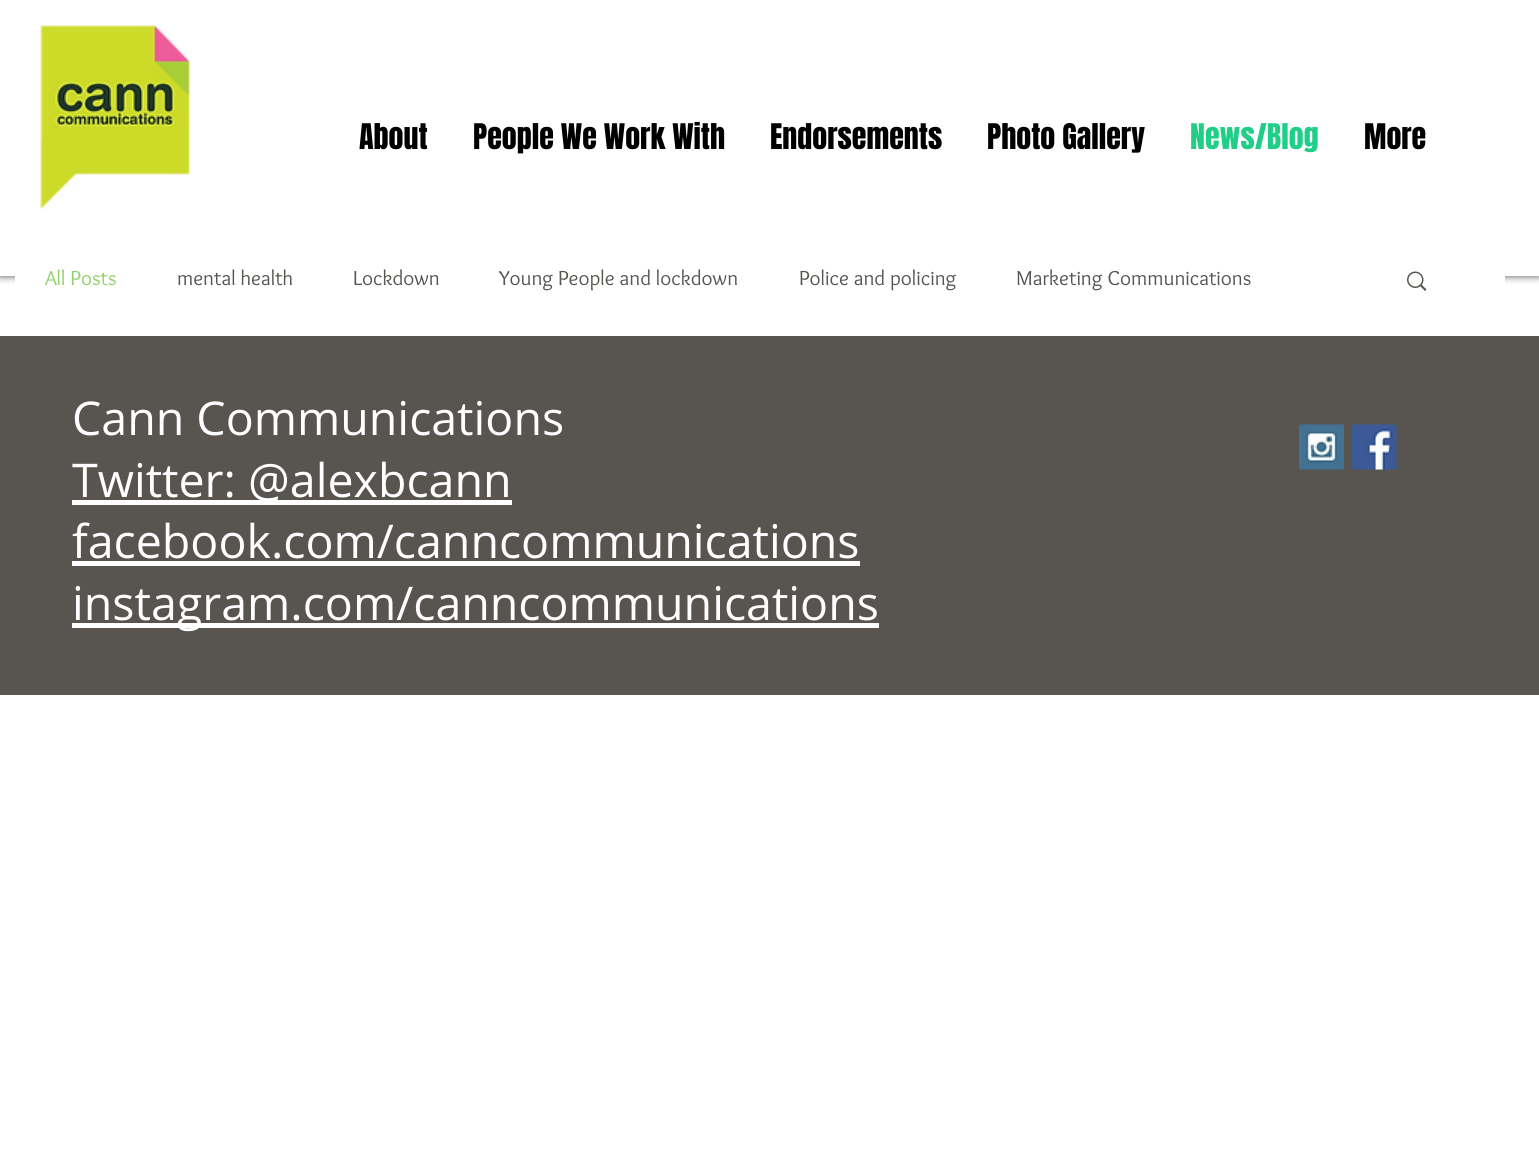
#include <cairo.h>
#include <math.h>
#include <stddef.h>

typedef struct { const char *family; double size; int italic, bold; unsigned color; } style_t;
static cairo_t *ctx;

static void ink(unsigned color) {
    cairo_set_source_rgb(ctx, (color >> 16) / 255.0, (color >> 8 & 255) / 255.0, (color & 255) / 255.0);
}

static void write(double x, double y, const char *s, const style_t *st) {
    cairo_select_font_face(ctx, st->family, st->italic ? CAIRO_FONT_SLANT_ITALIC : CAIRO_FONT_SLANT_NORMAL,
        st->bold ? CAIRO_FONT_WEIGHT_BOLD : CAIRO_FONT_WEIGHT_NORMAL);
    cairo_set_font_size(ctx, st->size);
    ink(st->color);
    cairo_move_to(ctx, x, y);
    cairo_show_text(ctx, s);
}

static void block(double x, double y, double w, double h, unsigned color) {
    ink(color);
    cairo_rectangle(ctx, x, y, w, h);
    cairo_fill(ctx);
}

static void round_path(double x, double y, double w, double h, double r) {
    cairo_new_sub_path(ctx);
    cairo_arc(ctx, x + w - r, y + h - r, r, 0, M_PI / 2);
    cairo_arc(ctx, x + r, y + h - r, r, M_PI / 2, M_PI);
    cairo_arc(ctx, x + r, y + r, r, M_PI, 1.5 * M_PI);
    cairo_arc(ctx, x + w - r, y + r, r, 1.5 * M_PI, 2 * M_PI);
    cairo_close_path(ctx);
}

static void blur_box(double x, double y, double w, double h, double r, double blur, double alpha) {
    cairo_push_group_with_content(ctx, CAIRO_CONTENT_ALPHA);
    cairo_set_operator(ctx, CAIRO_OPERATOR_SOURCE);
    for (int i = 15; i >= -15 && fmin(w, h) + blur * i / 3 > 0; i -= 2) {
        double e = blur * i / 6;
        cairo_set_source_rgba(ctx, 0, 0, 0, alpha * erfc((i - 1) / 8.5) / 2);
        round_path(x - e, y - e, w + 2 * e, h + 2 * e, fmax(0, fmin(r + e + blur * .6, fmin(w, h) / 2 + e)));
        cairo_fill(ctx);
    }
    cairo_pattern_t *soft = cairo_pop_group(ctx);
    cairo_mask(ctx, soft);
    cairo_pattern_destroy(soft);
}

static void paste(const char *path, double x, double y, double w, double h) {
    cairo_surface_t *image = cairo_image_surface_create_from_png(path);
    cairo_save(ctx);
    cairo_set_source_surface(ctx, image, x, y);
    cairo_rectangle(ctx, x, y, w, h);
    cairo_fill(ctx);
    cairo_restore(ctx);
    cairo_surface_destroy(image);
}

static const style_t s1 = {"Anton", 30, 0, 0, 0x000000};
static const style_t s2 = {"Anton", 30, 0, 0, 0x20ce88};
static const style_t s3 = {"Overlock", 21, 0, 0, 0x8fd169};
static const style_t s4 = {"Overlock", 21, 0, 0, 0x585551};
static const style_t s5 = {"Open Sans", 46.5, 0, 0, 0xffffff};

int main(void) {
    cairo_surface_t *surface = cairo_image_surface_create(CAIRO_FORMAT_RGB24, 1539, 1171);
    ctx = cairo_create(surface);
    cairo_font_options_t *options = cairo_font_options_create();
    cairo_font_options_set_hint_metrics(options, CAIRO_HINT_METRICS_OFF);
    cairo_font_options_set_hint_style(options, CAIRO_HINT_STYLE_NONE);
    cairo_set_font_options(ctx, options);
    cairo_set_miter_limit(ctx, 4);
    ink(0xffffff);
    cairo_paint(ctx);
    cairo_save(ctx);
    cairo_rectangle(ctx, 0, 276, 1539, 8);
    cairo_clip(ctx);
    ink(0x000000);
    blur_box(0, 0, 1539, 276, 0, 4, 0.7);
    cairo_restore(ctx);
    paste("pic1.png", 40, 25, 151, 184);
    write(359, 149, "About", &s1);
    write(473, 149, "People We Work With", &s1);
    write(770, 149, "Endorsements", &s1);
    write(987, 149, "Photo Gallery", &s1);
    write(1190, 149, "News/Blog", &s2);
    write(1364, 149, "More", &s1);
    block(15, 276, 1490, 9, 0xffffff);
    write(45, 285, "All Posts", &s3);
    write(177, 285, "mental health", &s4);
    write(353, 285, "Lockdown", &s4);
    write(499, 285, "Young People and lockdown", &s4);
    write(799, 285, "Police and policing", &s4);
    write(1016, 285, "Marketing Communications", &s4);
    paste("pic2.png", 1407, 271, 20, 20);
    block(0, 336, 1539, 359, 0x585551);
    write(72, 435, "Cann Communications", &s5);
    block(72, 500, 440, 5, 0xffffff);
    write(72, 497, "Twitter: @alexbcann", &s5);
    write(72, 558, "facebook.com/canncommunications", &s5);
    block(72, 561, 788, 5, 0xffffff);
    block(72, 623, 807, 5, 0xffffff);
    write(72, 620, "instagram.com/canncommunications", &s5);
    paste("pic3.png", 1299, 424, 45, 46);
    paste("pic4.png", 1351, 424, 46, 46);
    cairo_surface_write_to_png(surface, "screenshot.png");
    cairo_font_options_destroy(options);
    cairo_destroy(ctx);
    cairo_surface_destroy(surface);
    return 0;
}
